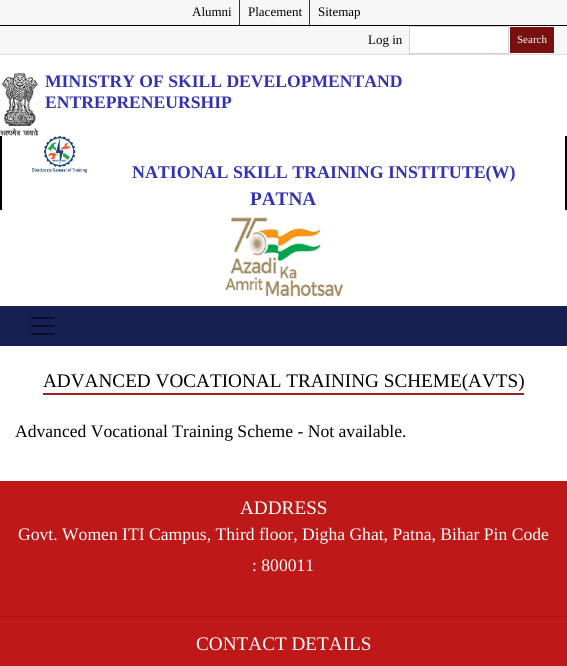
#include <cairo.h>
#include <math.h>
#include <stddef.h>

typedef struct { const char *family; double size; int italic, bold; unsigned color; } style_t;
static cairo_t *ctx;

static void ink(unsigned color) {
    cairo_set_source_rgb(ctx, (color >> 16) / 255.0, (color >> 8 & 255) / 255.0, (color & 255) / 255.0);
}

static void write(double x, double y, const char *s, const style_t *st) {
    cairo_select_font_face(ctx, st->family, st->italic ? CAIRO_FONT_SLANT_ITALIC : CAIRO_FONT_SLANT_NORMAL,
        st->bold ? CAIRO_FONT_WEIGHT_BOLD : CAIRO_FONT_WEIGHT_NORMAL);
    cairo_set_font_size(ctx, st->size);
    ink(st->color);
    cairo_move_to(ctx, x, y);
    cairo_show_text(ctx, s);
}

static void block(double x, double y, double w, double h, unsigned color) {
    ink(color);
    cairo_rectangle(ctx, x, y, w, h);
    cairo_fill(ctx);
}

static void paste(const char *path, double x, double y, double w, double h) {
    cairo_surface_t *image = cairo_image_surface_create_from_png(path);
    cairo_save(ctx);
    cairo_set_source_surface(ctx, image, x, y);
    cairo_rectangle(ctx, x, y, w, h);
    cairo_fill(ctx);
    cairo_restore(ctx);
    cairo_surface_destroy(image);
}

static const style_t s1 = {"Liberation Serif", 13, 0, 0, 0x000000};
static const style_t s2 = {"Liberation Serif", 11, 0, 0, 0xffffff};
static const style_t s3 = {"Liberation Serif", 17.6, 0, 1, 0x3333b3};
static const style_t s4 = {"Liberation Serif", 17.9, 0, 1, 0x3333b3};
static const style_t s5 = {"Liberation Serif", 19.2, 0, 1, 0x3333b3};
static const style_t s6 = {"Liberation Serif", 19.2, 0, 0, 0x000000};
static const style_t s7 = {"Liberation Serif", 17.6, 0, 0, 0x000000};
static const style_t s8 = {"Liberation Serif", 19.2, 0, 0, 0xffffff};
static const style_t s9 = {"Liberation Serif", 17.6, 0, 0, 0xffffff};

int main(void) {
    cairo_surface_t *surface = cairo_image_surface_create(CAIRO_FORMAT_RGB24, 567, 666);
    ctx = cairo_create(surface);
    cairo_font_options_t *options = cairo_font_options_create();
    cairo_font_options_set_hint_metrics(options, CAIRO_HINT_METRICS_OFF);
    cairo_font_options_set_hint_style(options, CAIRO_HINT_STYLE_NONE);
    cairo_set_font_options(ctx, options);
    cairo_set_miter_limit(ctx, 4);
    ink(0xffffff);
    cairo_paint(ctx);
    block(0, 0, 567, 54, 0xf7f7f7);
    block(0, 54, 567, 1, 0xdddddd);
    block(0, 25, 567, 1, 0x000000);
    block(239, 0, 1, 25, 0x333333);
    write(192, 16, "Alumni", &s1);
    block(309, 0, 1, 25, 0x333333);
    write(248, 16, "Placement", &s1);
    write(318, 16, "Sitemap", &s1);
    write(368, 44, "Log in", &s1);
    ink(0xffffff);
    cairo_rectangle(ctx, 409.5, 26.5, 99, 27);
    cairo_fill_preserve(ctx);
    ink(0xced4da);
    cairo_set_line_width(ctx, 1);
    cairo_stroke(ctx);
    block(510, 27, 44, 26, 0x791010);
    write(517, 43, "Search", &s2);
    paste("pic1.png", 0, 73, 39, 63);
    write(45, 87, "MINISTRY OF SKILL DEVELOPMENTAND", &s3);
    write(45, 108, "ENTREPRENEURSHIP", &s3);
    block(565, 136, 2, 74, 0x000000);
    block(0, 136, 2, 74, 0x000000);
    paste("pic2.png", 32, 136, 55, 37);
    write(132, 178, "NATIONAL SKILL TRAINING INSTITUTE(W)", &s4);
    write(250, 205, "PATNA", &s5);
    paste("pic3.png", 225, 217, 119, 80);
    block(0, 306, 567, 40, 0x172052);
    paste("pic4.png", 31, 317, 24, 18);
    write(43, 387, "ADVANCED VOCATIONAL TRAINING SCHEME(AVTS)", &s6);
    block(43, 393, 481, 2, 0x972222);
    write(15, 437, "Advanced Vocational Training Scheme - Not available.", &s7);
    block(0, 481, 567, 185, 0xbf1818);
    write(240, 514, "ADDRESS", &s8);
    write(18, 540, "Govt. Women ITI Campus, Third floor, Digha Ghat, Patna, Bihar Pin Code", &s9);
    write(252, 571, ": 800011", &s9);
    block(0, 616, 567, 1, 0xac1616);
    write(196, 650, "CONTACT DETAILS", &s8);
    cairo_surface_write_to_png(surface, "screenshot.png");
    cairo_font_options_destroy(options);
    cairo_destroy(ctx);
    cairo_surface_destroy(surface);
    return 0;
}
